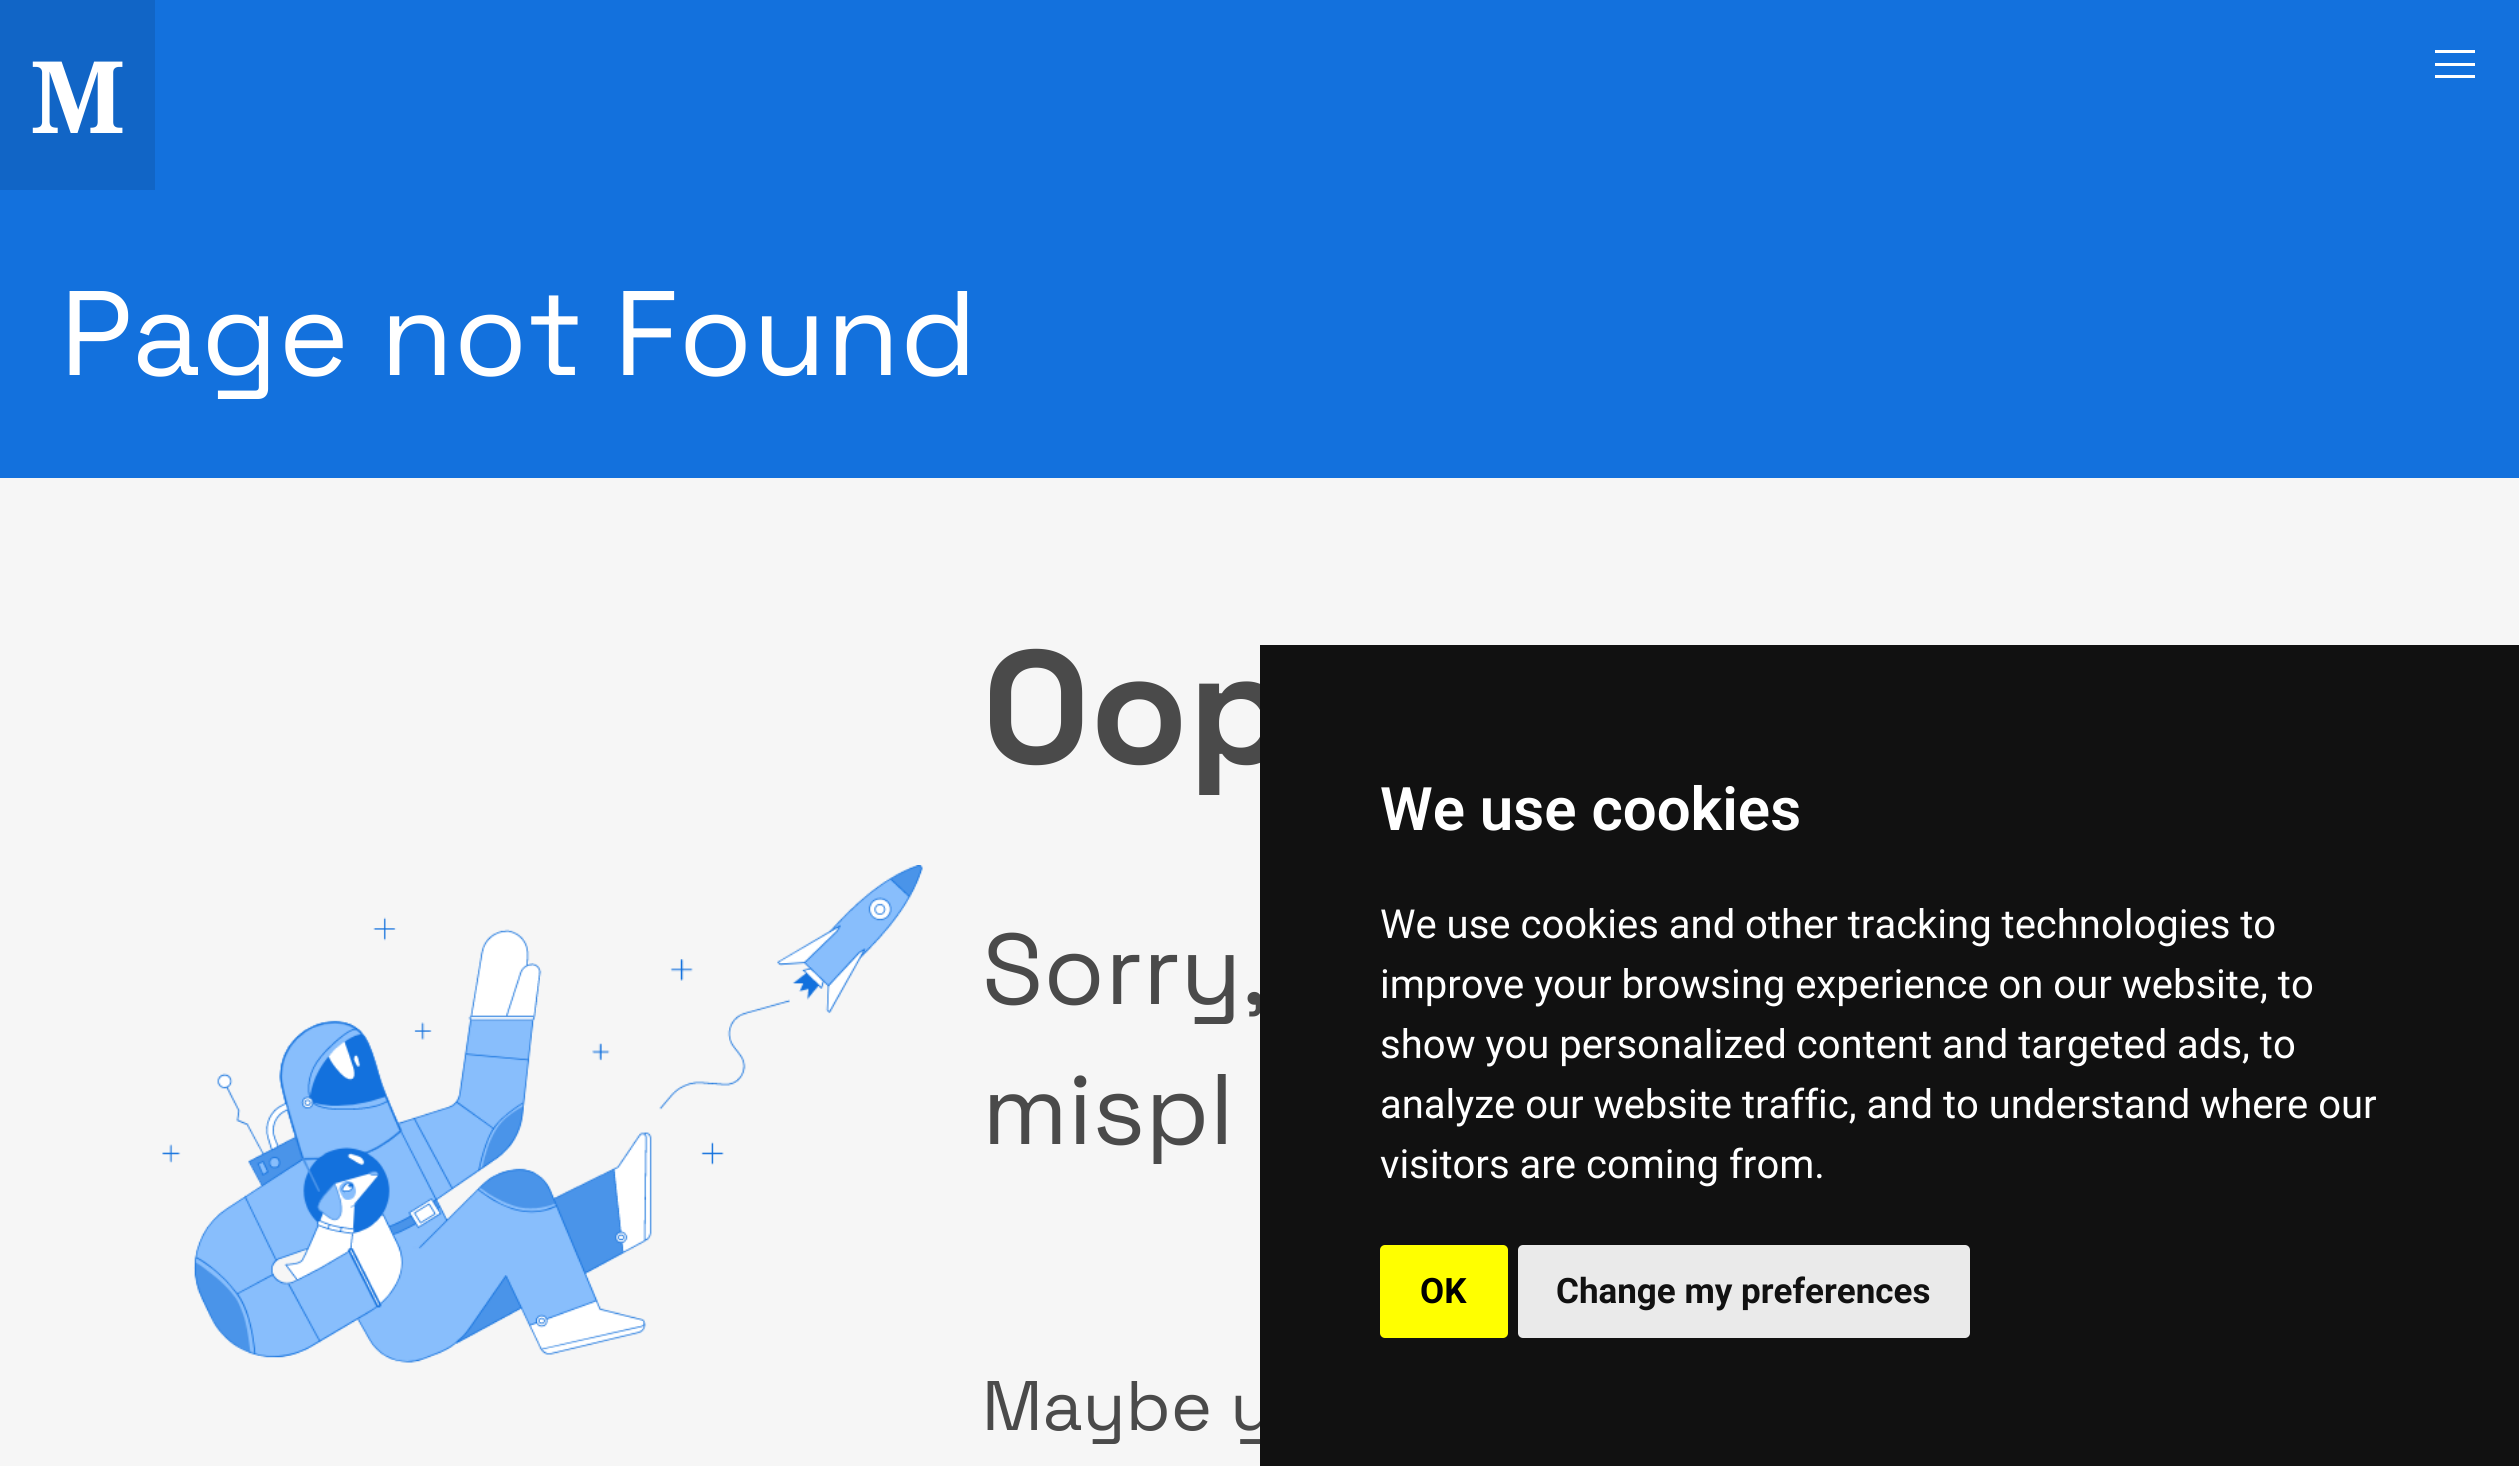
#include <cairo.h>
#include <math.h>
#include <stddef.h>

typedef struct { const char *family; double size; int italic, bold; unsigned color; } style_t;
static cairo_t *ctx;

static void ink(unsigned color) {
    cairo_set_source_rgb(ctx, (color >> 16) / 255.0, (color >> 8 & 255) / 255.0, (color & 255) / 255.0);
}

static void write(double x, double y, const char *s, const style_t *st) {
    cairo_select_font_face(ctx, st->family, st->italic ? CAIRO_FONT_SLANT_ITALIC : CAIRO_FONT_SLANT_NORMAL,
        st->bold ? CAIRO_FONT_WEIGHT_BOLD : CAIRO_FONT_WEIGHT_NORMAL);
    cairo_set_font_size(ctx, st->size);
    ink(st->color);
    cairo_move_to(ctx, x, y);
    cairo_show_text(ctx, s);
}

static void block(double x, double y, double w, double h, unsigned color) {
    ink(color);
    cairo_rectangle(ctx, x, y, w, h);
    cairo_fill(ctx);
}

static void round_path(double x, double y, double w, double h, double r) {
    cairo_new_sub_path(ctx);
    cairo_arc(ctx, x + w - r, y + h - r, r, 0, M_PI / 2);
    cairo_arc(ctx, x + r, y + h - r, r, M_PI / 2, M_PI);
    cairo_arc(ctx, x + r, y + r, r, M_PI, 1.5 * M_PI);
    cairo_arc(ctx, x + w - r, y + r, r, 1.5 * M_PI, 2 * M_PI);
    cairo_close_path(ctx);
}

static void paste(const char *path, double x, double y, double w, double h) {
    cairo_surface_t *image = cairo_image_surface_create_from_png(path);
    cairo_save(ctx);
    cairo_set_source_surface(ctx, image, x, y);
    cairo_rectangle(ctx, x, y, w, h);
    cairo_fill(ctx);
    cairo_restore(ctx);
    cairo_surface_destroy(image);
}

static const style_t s1 = {"Noto Serif", 100, 0, 1, 0xffffff};
static const style_t s2 = {"Space Grotesk", 120, 0, 0, 0xffffff};
static const style_t s3 = {"Space Grotesk", 160, 0, 1, 0x4a4a4a};
static const style_t s4 = {"Space Grotesk", 100, 0, 0, 0x4a4a4a};
static const style_t s5 = {"Space Grotesk", 70, 0, 0, 0x4a4a4a};
static const style_t s6 = {"Roboto SemiBold", 60, 0, 0, 0xffffff};
static const style_t s7 = {"Roboto", 40, 0, 0, 0xffffff};
static const style_t s8 = {"Roboto", 35, 0, 1, 0x000000};
static const style_t s9 = {"Roboto", 35, 0, 1, 0x111111};

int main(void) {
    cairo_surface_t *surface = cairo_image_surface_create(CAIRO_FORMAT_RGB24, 2519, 1466);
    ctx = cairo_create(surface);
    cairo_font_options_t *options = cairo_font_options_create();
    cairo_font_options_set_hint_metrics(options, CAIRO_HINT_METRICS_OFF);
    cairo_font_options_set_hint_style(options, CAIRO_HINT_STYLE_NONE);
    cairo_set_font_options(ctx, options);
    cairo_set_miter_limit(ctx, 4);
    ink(0xf6f6f6);
    cairo_paint(ctx);
    block(155, 0, 2364, 190, 0x1371dd);
    block(0, 0, 155, 190, 0x1165c6);
    write(30, 133, "M", &s1);
    block(2435, 50, 40, 3, 0xffffff);
    block(2435, 63, 40, 3, 0xffffff);
    block(2435, 75, 40, 3, 0xffffff);
    block(0, 190, 2519, 288, 0x1371dd);
    write(60, 375, "Page not Found", &s2);
    paste("pic1.png", 162, 865, 761, 498);
    write(982, 763, "Oop", &s3);
    write(982, 1004, "Sorry,", &s4);
    write(982, 1144, "mispl", &s4);
    write(982, 1430, "Maybe y", &s5);
    block(1260, 645, 1259, 821, 0x111111);
    write(1380, 830, "We use cookies", &s6);
    write(1380, 938, "We use cookies and other tracking technologies to", &s7);
    write(1380, 998, "improve your browsing experience on our website, to", &s7);
    write(1380, 1058, "show you personalized content and targeted ads, to", &s7);
    write(1380, 1118, "analyze our website traffic, and to understand where our", &s7);
    write(1380, 1178, "visitors are coming from.", &s7);
    ink(0xffff00);
    round_path(1380, 1245, 128, 93, 5);
    cairo_fill(ctx);
    write(1420, 1303, "OK", &s8);
    ink(0xeaeaea);
    round_path(1518, 1245, 452, 93, 5);
    cairo_fill(ctx);
    write(1556, 1303, "Change my preferences", &s9);
    cairo_surface_write_to_png(surface, "screenshot.png");
    cairo_font_options_destroy(options);
    cairo_destroy(ctx);
    cairo_surface_destroy(surface);
    return 0;
}
